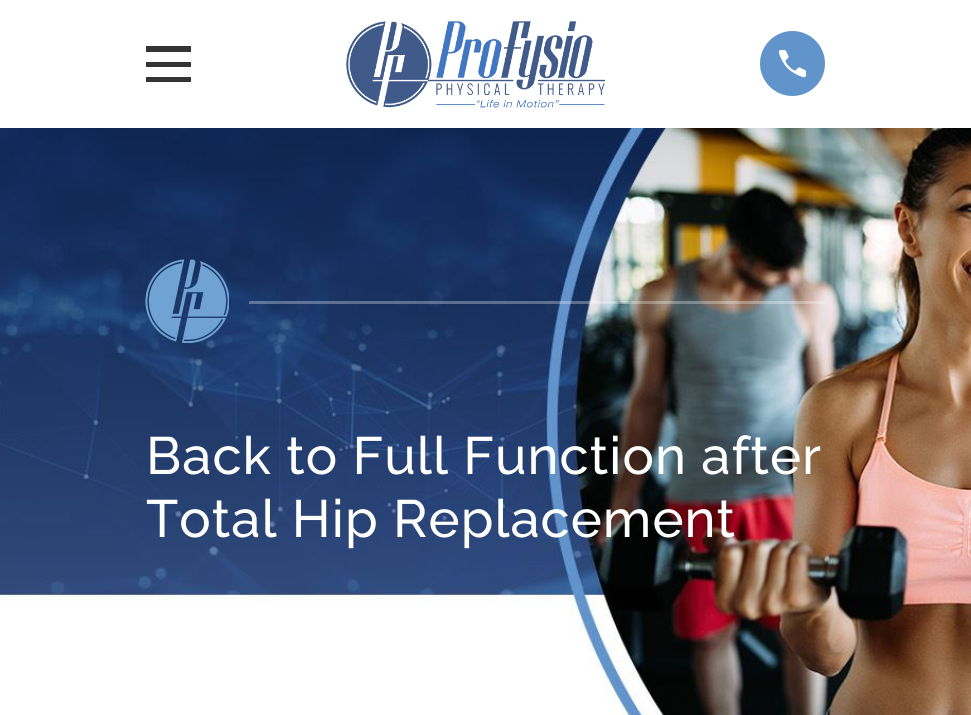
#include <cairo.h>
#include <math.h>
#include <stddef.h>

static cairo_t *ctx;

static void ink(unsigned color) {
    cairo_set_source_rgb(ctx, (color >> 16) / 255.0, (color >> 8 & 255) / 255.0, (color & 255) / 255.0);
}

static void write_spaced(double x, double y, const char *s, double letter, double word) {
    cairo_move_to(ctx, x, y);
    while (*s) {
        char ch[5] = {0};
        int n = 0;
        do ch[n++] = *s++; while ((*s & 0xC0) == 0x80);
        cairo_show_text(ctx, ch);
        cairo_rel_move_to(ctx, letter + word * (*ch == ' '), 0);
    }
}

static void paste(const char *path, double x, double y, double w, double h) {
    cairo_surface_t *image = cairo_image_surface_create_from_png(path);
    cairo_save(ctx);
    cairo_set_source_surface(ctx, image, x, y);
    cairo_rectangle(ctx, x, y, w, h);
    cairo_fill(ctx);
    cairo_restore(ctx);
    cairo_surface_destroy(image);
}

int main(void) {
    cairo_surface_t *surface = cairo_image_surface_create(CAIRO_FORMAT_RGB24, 971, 715);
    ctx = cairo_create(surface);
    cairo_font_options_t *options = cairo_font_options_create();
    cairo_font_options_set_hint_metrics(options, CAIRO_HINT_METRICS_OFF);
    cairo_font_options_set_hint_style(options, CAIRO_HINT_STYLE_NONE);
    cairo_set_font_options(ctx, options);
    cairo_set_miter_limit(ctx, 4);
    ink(0xffffff);
    cairo_paint(ctx);
    cairo_save(ctx);
    cairo_rectangle(ctx, 146, 41, 45, 47);
    cairo_clip(ctx);
    ink(0x343434);
    cairo_new_path(ctx);
    cairo_move_to(ctx, 146, 46);
    cairo_line_to(ctx, 146, 52);
    cairo_line_to(ctx, 192, 52);
    cairo_line_to(ctx, 192, 46);
    cairo_close_path(ctx);
    cairo_move_to(ctx, 146, 62);
    cairo_line_to(ctx, 146, 67);
    cairo_line_to(ctx, 192, 67);
    cairo_line_to(ctx, 192, 62);
    cairo_close_path(ctx);
    cairo_move_to(ctx, 146, 77);
    cairo_line_to(ctx, 146, 82);
    cairo_line_to(ctx, 192, 82);
    cairo_line_to(ctx, 192, 77);
    cairo_close_path(ctx);
    cairo_fill(ctx);
    cairo_restore(ctx);
    paste("pic1.png", 346, 21, 259, 87);
    ink(0x6294cc);
    cairo_arc(ctx, 792.5, 63.5, 32.5, 0, 2 * M_PI);
    cairo_fill(ctx);
    paste("pic2.png", 779, 50, 27, 28);
    paste("pic3.png", 0, 128, 971, 587);
    paste("pic4.png", 145, 259, 84, 84);
    cairo_set_source_rgba(ctx, 1, 1, 1, 0.3);
    cairo_rectangle(ctx, 249, 301, 576, 3);
    cairo_fill(ctx);
    cairo_select_font_face(ctx, "Raleway Medium", CAIRO_FONT_SLANT_NORMAL, CAIRO_FONT_WEIGHT_NORMAL);
    cairo_set_font_size(ctx, 52.5);
    ink(0xffffff);
    write_spaced(146, 474, "Back to Full Function after", 1.05, 0);
    write_spaced(146, 537, "Total Hip Replacement", 1.05, 0);
    cairo_surface_write_to_png(surface, "screenshot.png");
    cairo_font_options_destroy(options);
    cairo_destroy(ctx);
    cairo_surface_destroy(surface);
    return 0;
}
